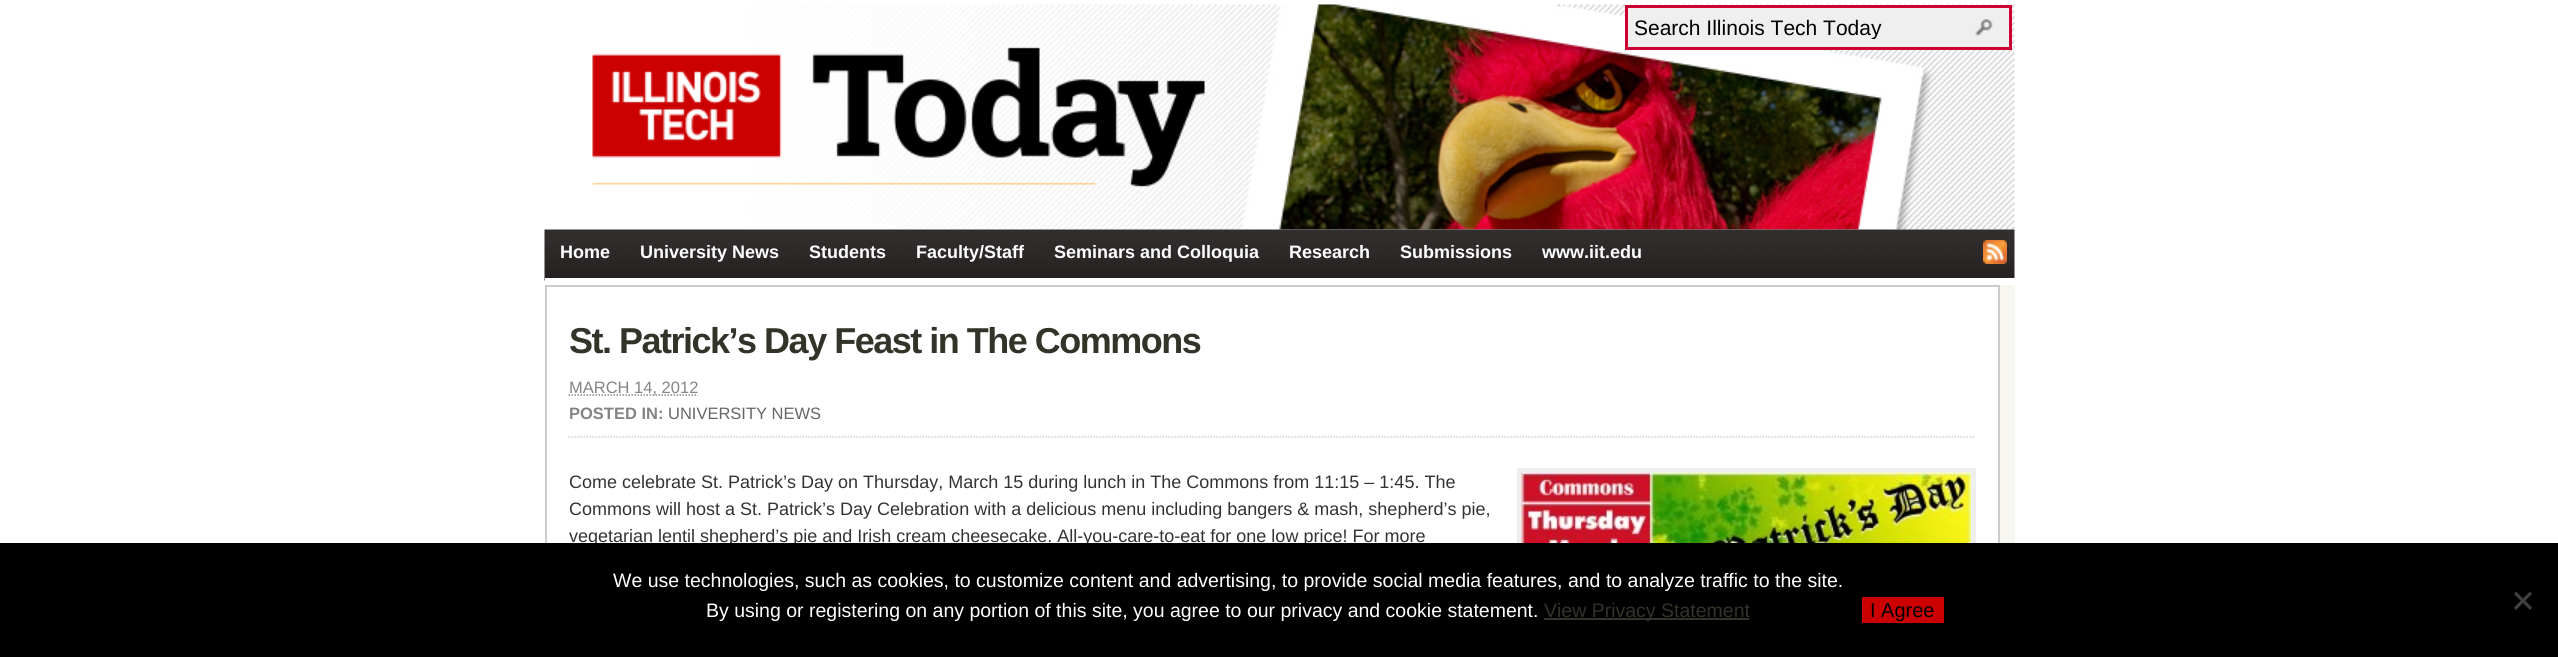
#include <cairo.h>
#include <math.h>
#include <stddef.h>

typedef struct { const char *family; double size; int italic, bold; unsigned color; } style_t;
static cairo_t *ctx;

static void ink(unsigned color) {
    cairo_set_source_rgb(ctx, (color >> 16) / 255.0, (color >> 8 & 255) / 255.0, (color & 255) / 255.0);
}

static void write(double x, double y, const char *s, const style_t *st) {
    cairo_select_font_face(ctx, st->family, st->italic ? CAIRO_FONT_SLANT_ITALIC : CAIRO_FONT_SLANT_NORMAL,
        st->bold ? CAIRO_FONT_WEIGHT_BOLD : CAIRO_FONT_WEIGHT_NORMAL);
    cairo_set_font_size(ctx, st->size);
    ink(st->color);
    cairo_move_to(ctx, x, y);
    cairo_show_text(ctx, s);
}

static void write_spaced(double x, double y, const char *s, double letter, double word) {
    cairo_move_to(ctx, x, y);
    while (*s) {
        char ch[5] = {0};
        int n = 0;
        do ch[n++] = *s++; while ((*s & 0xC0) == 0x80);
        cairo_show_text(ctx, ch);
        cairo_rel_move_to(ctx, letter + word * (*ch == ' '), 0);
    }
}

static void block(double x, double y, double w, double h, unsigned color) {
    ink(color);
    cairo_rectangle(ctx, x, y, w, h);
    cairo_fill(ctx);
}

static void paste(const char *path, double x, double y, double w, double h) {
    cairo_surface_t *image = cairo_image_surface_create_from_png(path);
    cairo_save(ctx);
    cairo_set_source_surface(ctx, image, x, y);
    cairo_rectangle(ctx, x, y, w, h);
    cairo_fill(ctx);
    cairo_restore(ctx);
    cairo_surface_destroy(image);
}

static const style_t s1 = {"Liberation Sans", 21, 0, 0, 0x000000};
static const style_t s2 = {"Liberation Sans", 18, 0, 1, 0xffffff};
static const style_t s3 = {"Liberation Sans", 16.5, 0, 0, 0x848485};
static const style_t s4 = {"Liberation Sans", 16.5, 0, 1, 0x848485};
static const style_t s5 = {"Liberation Sans", 16.5, 0, 0, 0x666666};
static const style_t s6 = {"Liberation Sans", 18, 0, 0, 0x333333};
static const style_t s7 = {"Liberation Sans", 19.5, 0, 0, 0xffffff};
static const style_t s8 = {"Liberation Sans", 19.5, 0, 0, 0x313428};
static const style_t s9 = {"Liberation Sans", 20, 0, 0, 0x000000};

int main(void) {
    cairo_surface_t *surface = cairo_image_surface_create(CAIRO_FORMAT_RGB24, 2558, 657);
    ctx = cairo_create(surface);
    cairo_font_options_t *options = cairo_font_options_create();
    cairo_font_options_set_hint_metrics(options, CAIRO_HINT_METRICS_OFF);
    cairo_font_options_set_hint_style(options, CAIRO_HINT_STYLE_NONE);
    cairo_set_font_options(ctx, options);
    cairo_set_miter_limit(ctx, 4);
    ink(0xffffff);
    cairo_paint(ctx);
    paste("pic1.png", 592, 4, 1423, 226);
    ink(0xefefef);
    cairo_rectangle(ctx, 1626.5, 6.5, 384, 42);
    cairo_fill_preserve(ctx);
    ink(0xcc0033);
    cairo_set_line_width(ctx, 3);
    cairo_stroke(ctx);
    cairo_save(ctx);
    cairo_rectangle(ctx, 1634, 15, 339, 24);
    cairo_clip(ctx);
    write(1634, 35, "Search Illinois Tech Today", &s1);
    cairo_restore(ctx);
    paste("pic2.png", 1975, 19, 18, 18);
    paste("pic3.png", 544, 229, 1471, 52);
    write(560, 258, "Home", &s2);
    write(640, 258, "University News", &s2);
    write(809, 258, "Students", &s2);
    write(916, 258, "Faculty/Staff", &s2);
    write(1054, 258, "Seminars and Colloquia", &s2);
    write(1289, 258, "Research", &s2);
    write(1400, 258, "Submissions", &s2);
    write(1542, 258, "www.iit.edu", &s2);
    paste("pic4.png", 1983, 240, 24, 24);
    block(545, 278, 1470, 3, 0xffffff);
    block(2000, 285, 15, 258, 0xf7f6f0);
    cairo_rectangle(ctx, 546, 286, 1453, 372);
    ink(0xcccccc);
    cairo_set_line_width(ctx, 2);
    cairo_stroke(ctx);
    cairo_set_font_size(ctx, 36);
    ink(0x313428);
    write_spaced(569, 353, "St. Patrick’s Day Feast in The Commons", -1.5, 0);
    cairo_new_path(ctx);
    cairo_move_to(ctx, 568.5, 437);
    cairo_line_to(ctx, 1975.5, 437);
    ink(0xcccccc);
    cairo_set_line_width(ctx, 1.5);
    cairo_set_dash(ctx, (double[]){1.5, 1.5}, 2, 0);
    cairo_stroke(ctx);
    cairo_new_path(ctx);
    cairo_move_to(ctx, 568.5, 395);
    cairo_line_to(ctx, 698, 395);
    ink(0x848485);
    cairo_stroke(ctx);
    write(569, 393, "MARCH 14, 2012", &s3);
    write(569, 419, "POSTED IN:", &s4);
    write(668, 419, "UNIVERSITY NEWS", &s5);
    write(569, 488, "Come celebrate St. Patrick’s Day on Thursday, March 15 during lunch in The Commons from 11:15 – 1:45. The", &s6);
    cairo_rectangle(ctx, 1519.5, 470.5, 454, 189);
    ink(0xeeeeee);
    cairo_set_line_width(ctx, 5);
    cairo_set_dash(ctx, NULL, 0, 0);
    cairo_stroke(ctx);
    paste("pic5.png", 1521, 472, 450, 71);
    write(569, 515, "Commons will host a St. Patrick’s Day Celebration with a delicious menu including bangers & mash, shepherd’s pie,", &s6);
    write(569, 542, "vegetarian lentil shepherd’s pie and Irish cream cheesecake. All-you-care-to-eat for one low price! For more", &s6);
    block(0, 543, 2558, 114, 0x000000);
    write(613, 587, "We use technologies, such as cookies, to customize content and advertising, to provide social media features, and to analyze traffic to the site.", &s7);
    write(706, 617, "By using or registering on any portion of this site, you agree to our privacy and cookie statement.", &s7);
    block(1544, 618, 205, 2, 0x313428);
    write(1544, 617, "View Privacy Statement", &s8);
    ink(0x404040);
    cairo_new_path(ctx);
    cairo_move_to(ctx, 2530, 591.5);
    cairo_line_to(ctx, 2532, 594);
    cairo_line_to(ctx, 2516, 610);
    cairo_line_to(ctx, 2514, 607.5);
    cairo_close_path(ctx);
    cairo_fill(ctx);
    cairo_new_path(ctx);
    cairo_move_to(ctx, 2514, 594);
    cairo_line_to(ctx, 2516, 591.5);
    cairo_line_to(ctx, 2532, 607.5);
    cairo_line_to(ctx, 2530, 610);
    cairo_close_path(ctx);
    cairo_fill(ctx);
    block(1862, 597, 82, 26, 0xcc0000);
    write(1870, 617, "I Agree", &s9);
    cairo_surface_write_to_png(surface, "screenshot.png");
    cairo_font_options_destroy(options);
    cairo_destroy(ctx);
    cairo_surface_destroy(surface);
    return 0;
}
